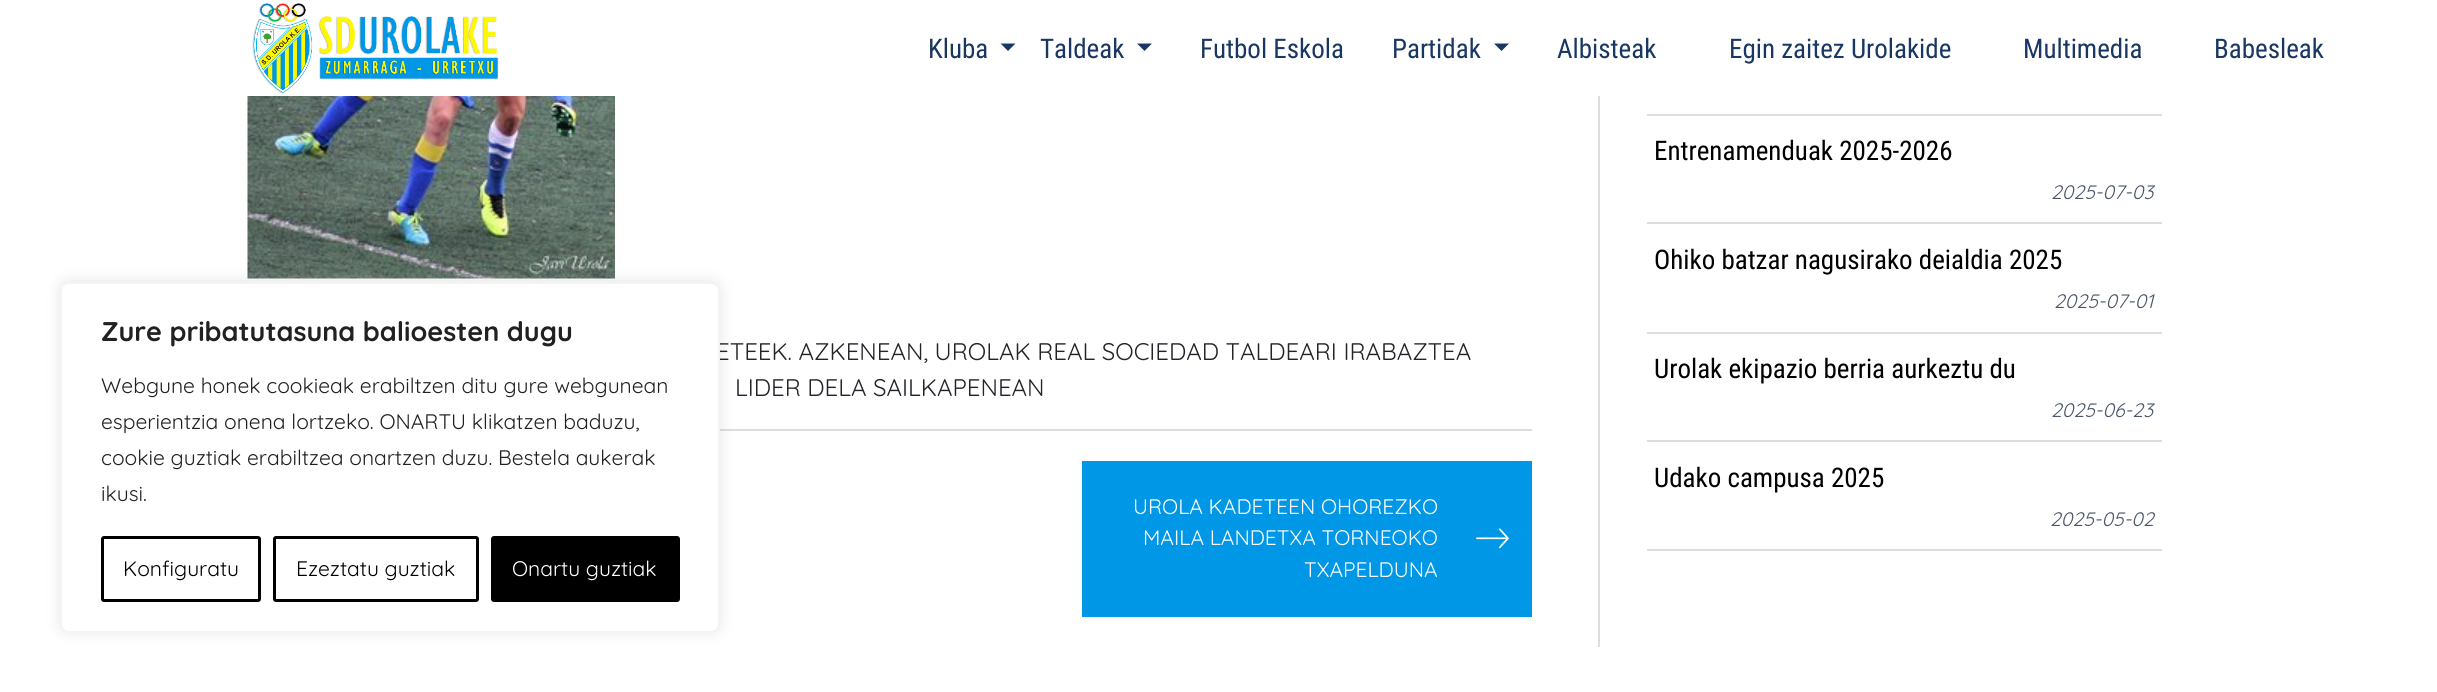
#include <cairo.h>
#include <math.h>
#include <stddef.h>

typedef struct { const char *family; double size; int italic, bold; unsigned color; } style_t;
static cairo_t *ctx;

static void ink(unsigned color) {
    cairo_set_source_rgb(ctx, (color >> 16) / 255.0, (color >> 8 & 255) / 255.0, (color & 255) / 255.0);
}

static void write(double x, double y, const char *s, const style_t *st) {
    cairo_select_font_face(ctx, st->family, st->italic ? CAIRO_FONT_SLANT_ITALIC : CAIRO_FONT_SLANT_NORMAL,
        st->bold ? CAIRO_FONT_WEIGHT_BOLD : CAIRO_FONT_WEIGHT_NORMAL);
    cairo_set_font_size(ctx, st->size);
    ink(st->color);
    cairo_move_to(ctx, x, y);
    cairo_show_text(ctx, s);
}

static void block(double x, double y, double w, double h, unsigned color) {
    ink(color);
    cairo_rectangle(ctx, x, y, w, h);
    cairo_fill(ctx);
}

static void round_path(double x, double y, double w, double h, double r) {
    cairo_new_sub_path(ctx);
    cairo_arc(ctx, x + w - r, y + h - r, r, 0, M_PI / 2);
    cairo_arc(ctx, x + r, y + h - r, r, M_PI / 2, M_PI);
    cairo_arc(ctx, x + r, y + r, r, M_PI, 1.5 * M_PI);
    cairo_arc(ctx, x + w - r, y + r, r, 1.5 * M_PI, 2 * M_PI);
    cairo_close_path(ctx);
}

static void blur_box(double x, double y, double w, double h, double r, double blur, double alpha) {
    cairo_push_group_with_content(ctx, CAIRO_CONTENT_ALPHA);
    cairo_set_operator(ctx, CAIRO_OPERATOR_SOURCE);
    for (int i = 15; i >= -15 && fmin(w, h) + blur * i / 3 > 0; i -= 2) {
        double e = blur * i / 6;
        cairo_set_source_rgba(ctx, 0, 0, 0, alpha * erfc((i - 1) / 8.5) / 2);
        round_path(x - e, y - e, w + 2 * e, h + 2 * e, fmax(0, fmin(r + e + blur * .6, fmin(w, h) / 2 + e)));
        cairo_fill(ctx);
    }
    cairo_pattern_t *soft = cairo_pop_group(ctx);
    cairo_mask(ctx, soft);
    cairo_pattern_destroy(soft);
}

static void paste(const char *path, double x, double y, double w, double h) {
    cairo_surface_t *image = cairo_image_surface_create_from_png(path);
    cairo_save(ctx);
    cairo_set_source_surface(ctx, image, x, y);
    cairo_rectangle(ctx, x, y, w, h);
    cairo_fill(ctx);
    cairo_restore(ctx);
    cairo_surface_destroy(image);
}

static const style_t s1 = {"Quicksand", 24, 0, 0, 0x212529};
static const style_t s2 = {"Quicksand", 27, 0, 1, 0x212121};
static const style_t s3 = {"Quicksand", 21, 0, 0, 0x212121};
static const style_t s4 = {"Quicksand", 21, 0, 0, 0x000000};
static const style_t s5 = {"Quicksand", 21, 0, 0, 0xffffff};
static const style_t s6 = {"Roboto Condensed", 27, 0, 0, 0x193763};
static const style_t s7 = {"Roboto Condensed", 27, 0, 0, 0x000000};
static const style_t s8 = {"Quicksand", 19.5, 1, 0, 0x4b566b};

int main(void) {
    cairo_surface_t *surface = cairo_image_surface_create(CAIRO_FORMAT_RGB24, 2437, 692);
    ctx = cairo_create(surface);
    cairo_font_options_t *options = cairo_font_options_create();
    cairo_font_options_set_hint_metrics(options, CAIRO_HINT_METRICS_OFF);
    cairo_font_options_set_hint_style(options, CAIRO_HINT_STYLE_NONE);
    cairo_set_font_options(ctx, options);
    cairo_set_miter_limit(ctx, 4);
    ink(0xffffff);
    cairo_paint(ctx);
    paste("pic2.png", 247, 96, 368, 183);
    block(720, 429, 812, 2, 0xdddddd);
    ink(0xacabab);
    blur_box(60, 281, 660, 351, 9, 7.5, 0.3);
    write(716, 360, "ETEEK. AZKENEAN, UROLAK REAL SOCIEDAD TALDEARI IRABAZTEA", &s1);
    ink(0xffffff);
    round_path(61, 283, 658, 349, 8);
    cairo_fill_preserve(ctx);
    ink(0xf4f4f4);
    cairo_stroke(ctx);
    write(101, 341, "Zure pribatutasuna balioesten dugu", &s2);
    write(101, 393, "Webgune honek cookieak erabiltzen ditu gure webgunean", &s3);
    write(101, 429, "esperientzia onena lortzeko. ONARTU klikatzen baduzu,", &s3);
    write(101, 465, "cookie guztiak erabiltzea onartzen duzu. Bestela aukerak", &s3);
    write(101, 501, "ikusi.", &s3);
    round_path(102.5, 537.5, 157, 63, 1.5);
    ink(0x000000);
    cairo_set_line_width(ctx, 3);
    cairo_stroke(ctx);
    write(123, 576, "Konfiguratu", &s4);
    round_path(274.5, 537.5, 203, 63, 1.5);
    cairo_stroke(ctx);
    write(296, 576, "Ezeztatu guztiak", &s4);
    round_path(492.5, 537.5, 186, 63, 1.5);
    cairo_fill_preserve(ctx);
    cairo_stroke(ctx);
    write(512, 576, "Onartu guztiak", &s5);
    paste("pic1.png", 252, 3, 246, 91);
    write(928, 58, "Kluba", &s6);
    cairo_new_path(ctx);
    cairo_move_to(ctx, 1000.5, 43.5);
    cairo_line_to(ctx, 1015.5, 43.5);
    cairo_line_to(ctx, 1008, 51);
    cairo_close_path(ctx);
    cairo_fill(ctx);
    write(1040, 58, "Taldeak", &s6);
    cairo_new_path(ctx);
    cairo_move_to(ctx, 1137, 43.5);
    cairo_line_to(ctx, 1152, 43.5);
    cairo_line_to(ctx, 1144.5, 51);
    cairo_close_path(ctx);
    cairo_fill(ctx);
    write(1200, 58, "Futbol Eskola", &s6);
    write(1392, 58, "Partidak", &s6);
    cairo_new_path(ctx);
    cairo_move_to(ctx, 1494, 43.5);
    cairo_line_to(ctx, 1509, 43.5);
    cairo_line_to(ctx, 1501.5, 51);
    cairo_close_path(ctx);
    cairo_fill(ctx);
    write(1557, 58, "Albisteak", &s6);
    write(1729, 58, "Egin zaitez Urolakide", &s6);
    write(2023, 58, "Multimedia", &s6);
    write(2214, 58, "Babesleak", &s6);
    write(735, 396, "LIDER DELA SAILKAPENEAN", &s1);
    block(1082, 461, 450, 156, 0x0098e6);
    write(1133, 514, "UROLA KADETEEN OHOREZKO", &s5);
    write(1143, 545, "MAILA LANDETXA TORNEOKO", &s5);
    write(1304, 577, "TXAPELDUNA", &s5);
    paste("pic3.png", 1476, 528, 33, 21);
    block(1598, 96, 2, 551, 0xdddddd);
    block(1647, 114, 515, 2, 0xdddddd);
    block(1647, 222, 515, 2, 0xdddddd);
    write(1654, 160, "Entrenamenduak 2025-2026", &s7);
    write(2051, 199, "2025-07-03", &s8);
    block(1647, 332, 515, 2, 0xdddddd);
    write(1654, 269, "Ohiko batzar nagusirako deialdia 2025", &s7);
    write(2054, 308, "2025-07-01", &s8);
    block(1647, 440, 515, 2, 0xdddddd);
    write(1654, 378, "Urolak ekipazio berria aurkeztu du", &s7);
    write(2051, 417, "2025-06-23", &s8);
    block(1647, 549, 515, 2, 0xdddddd);
    write(1654, 487, "Udako campusa 2025", &s7);
    write(2050, 526, "2025-05-02", &s8);
    cairo_surface_write_to_png(surface, "screenshot.png");
    cairo_font_options_destroy(options);
    cairo_destroy(ctx);
    cairo_surface_destroy(surface);
    return 0;
}
